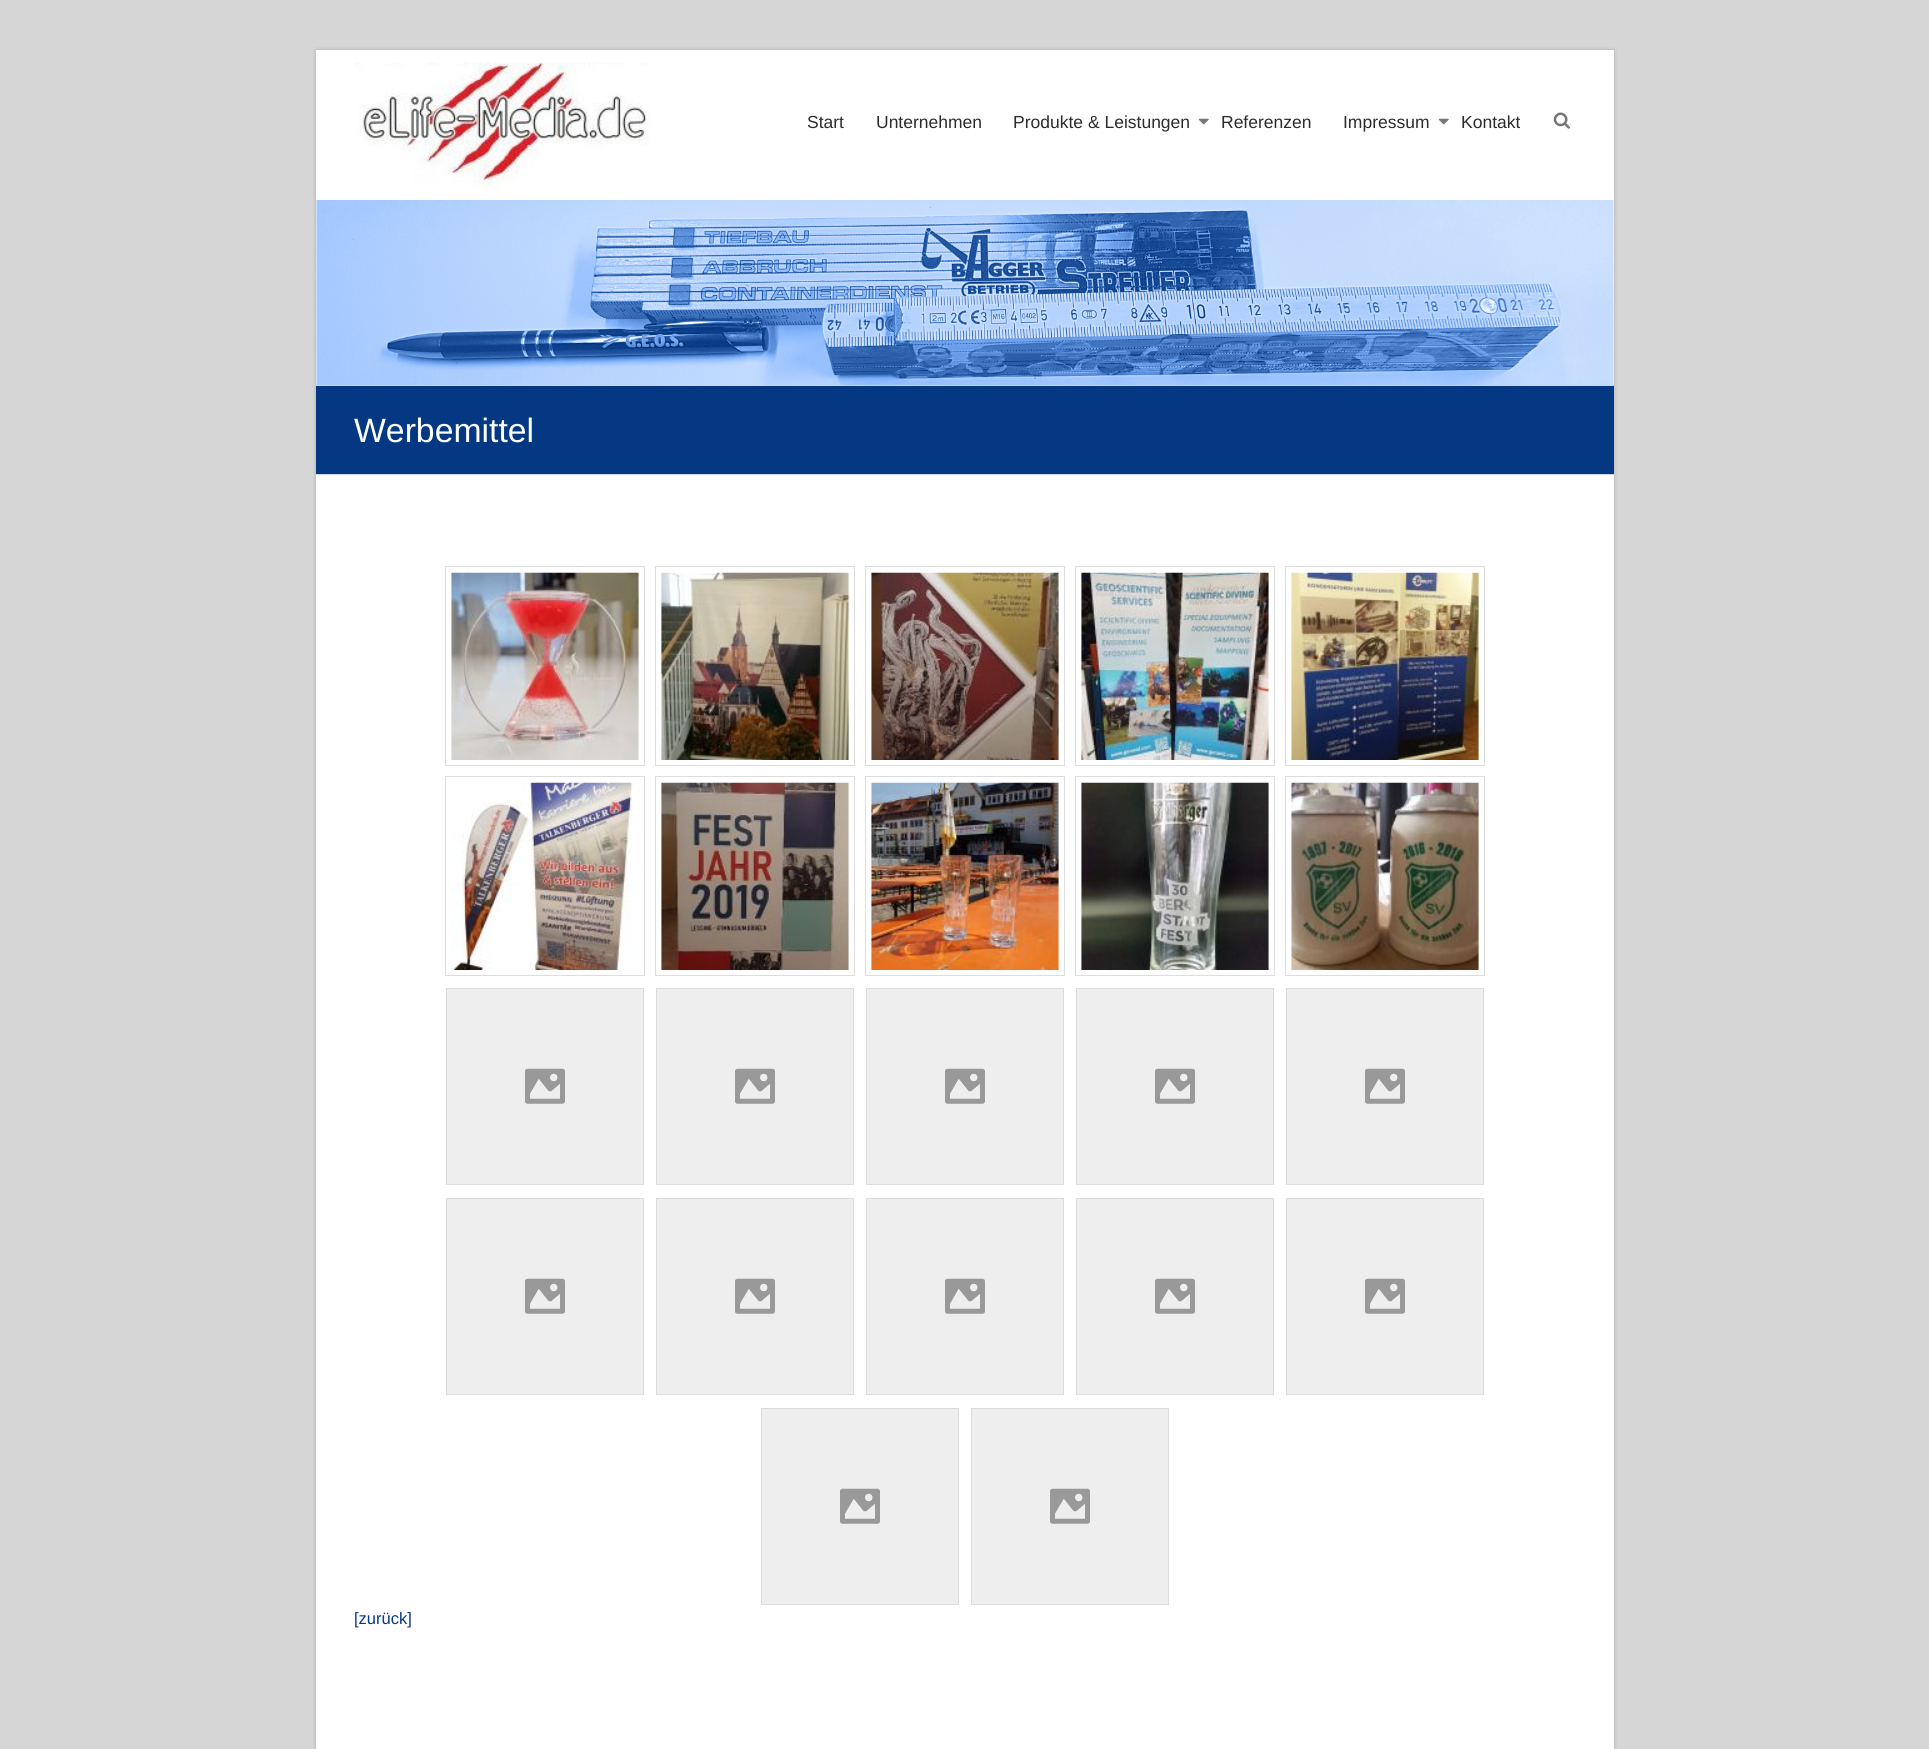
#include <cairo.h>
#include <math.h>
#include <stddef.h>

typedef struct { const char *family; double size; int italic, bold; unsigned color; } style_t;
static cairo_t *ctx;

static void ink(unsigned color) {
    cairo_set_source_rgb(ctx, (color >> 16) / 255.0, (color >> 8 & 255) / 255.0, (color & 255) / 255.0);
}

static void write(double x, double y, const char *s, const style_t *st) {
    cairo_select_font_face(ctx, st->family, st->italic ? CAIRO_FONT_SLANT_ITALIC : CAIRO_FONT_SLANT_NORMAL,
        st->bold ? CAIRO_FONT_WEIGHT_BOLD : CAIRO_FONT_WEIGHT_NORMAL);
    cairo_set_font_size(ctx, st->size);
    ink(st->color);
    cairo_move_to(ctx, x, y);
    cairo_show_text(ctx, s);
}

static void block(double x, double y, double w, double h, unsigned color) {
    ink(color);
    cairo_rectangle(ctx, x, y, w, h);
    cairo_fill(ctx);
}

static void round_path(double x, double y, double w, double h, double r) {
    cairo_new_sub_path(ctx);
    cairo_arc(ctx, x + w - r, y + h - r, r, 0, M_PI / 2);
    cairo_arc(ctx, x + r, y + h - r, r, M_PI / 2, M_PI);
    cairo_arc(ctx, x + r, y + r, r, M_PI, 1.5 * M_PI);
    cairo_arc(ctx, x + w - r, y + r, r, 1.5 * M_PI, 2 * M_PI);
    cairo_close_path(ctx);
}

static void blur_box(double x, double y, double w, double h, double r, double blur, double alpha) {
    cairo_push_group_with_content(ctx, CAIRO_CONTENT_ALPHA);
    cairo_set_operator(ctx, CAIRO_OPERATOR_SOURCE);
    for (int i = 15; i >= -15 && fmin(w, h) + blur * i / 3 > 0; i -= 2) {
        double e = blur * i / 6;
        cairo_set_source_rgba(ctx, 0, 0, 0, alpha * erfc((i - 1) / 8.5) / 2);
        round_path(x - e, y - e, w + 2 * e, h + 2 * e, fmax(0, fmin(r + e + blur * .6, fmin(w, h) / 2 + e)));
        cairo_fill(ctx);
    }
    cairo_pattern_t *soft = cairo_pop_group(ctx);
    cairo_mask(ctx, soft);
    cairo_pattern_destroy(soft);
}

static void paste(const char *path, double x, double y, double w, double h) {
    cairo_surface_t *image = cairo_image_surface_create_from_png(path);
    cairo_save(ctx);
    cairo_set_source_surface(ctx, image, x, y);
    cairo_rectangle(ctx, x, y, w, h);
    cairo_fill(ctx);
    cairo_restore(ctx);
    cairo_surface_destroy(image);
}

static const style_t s1 = {"Liberation Sans", 17.5, 0, 0, 0x2c2c2c};
static const style_t s2 = {"Liberation Sans", 33.75, 0, 0, 0xffffff};
static const style_t s3 = {"Liberation Sans", 16.5, 0, 0, 0x043882};

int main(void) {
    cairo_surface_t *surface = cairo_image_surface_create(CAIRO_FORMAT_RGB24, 1929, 1749);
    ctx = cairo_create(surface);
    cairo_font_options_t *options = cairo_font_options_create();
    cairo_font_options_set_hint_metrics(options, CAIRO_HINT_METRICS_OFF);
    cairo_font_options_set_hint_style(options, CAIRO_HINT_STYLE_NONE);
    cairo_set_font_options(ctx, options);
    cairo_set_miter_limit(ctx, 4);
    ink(0xd6d6d6);
    cairo_paint(ctx);
    ink(0x000000);
    blur_box(316, 50, 1298, 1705, 0, 2, 0.2);
    block(316, 50, 1298, 1699, 0xffffff);
    paste("pic1.png", 355, 62, 297, 128);
    write(807, 128, "Start", &s1);
    write(876, 128, "Unternehmen", &s1);
    write(1013, 128, "Produkte & Leistungen", &s1);
    paste("pic2.png", 1198, 118, 11, 7);
    write(1221, 128, "Referenzen", &s1);
    write(1343, 128, "Impressum", &s1);
    paste("pic2.png", 1438, 118, 11, 7);
    write(1461, 128, "Kontakt", &s1);
    paste("pic3.png", 1553, 112, 17, 17);
    paste("pic4.png", 316, 200, 1298, 185);
    block(316, 386, 1298, 88, 0x043882);
    block(316, 385, 1298, 1, 0xcdd7e6);
    block(316, 474, 1298, 1, 0xcdd7e6);
    write(354, 442, "Werbemittel", &s2);
    cairo_rectangle(ctx, 445.5, 566.5, 199, 199);
    ink(0xdddddd);
    cairo_set_line_width(ctx, 1);
    cairo_stroke(ctx);
    paste("pic5.png", 451, 572, 188, 188);
    cairo_rectangle(ctx, 655.5, 566.5, 199, 199);
    cairo_stroke(ctx);
    paste("pic6.png", 661, 572, 188, 188);
    cairo_rectangle(ctx, 865.5, 566.5, 199, 199);
    cairo_stroke(ctx);
    paste("pic7.png", 871, 572, 188, 188);
    cairo_rectangle(ctx, 1075.5, 566.5, 199, 199);
    cairo_stroke(ctx);
    paste("pic8.png", 1081, 572, 188, 188);
    cairo_rectangle(ctx, 1285.5, 566.5, 199, 199);
    cairo_stroke(ctx);
    paste("pic9.png", 1291, 572, 188, 188);
    cairo_rectangle(ctx, 445.5, 776.5, 199, 199);
    cairo_stroke(ctx);
    paste("pic10.png", 451, 782, 182, 188);
    cairo_rectangle(ctx, 655.5, 776.5, 199, 199);
    cairo_stroke(ctx);
    paste("pic11.png", 661, 782, 188, 188);
    cairo_rectangle(ctx, 865.5, 776.5, 199, 199);
    cairo_stroke(ctx);
    paste("pic12.png", 871, 782, 188, 188);
    cairo_rectangle(ctx, 1075.5, 776.5, 199, 199);
    cairo_stroke(ctx);
    paste("pic13.png", 1081, 782, 188, 188);
    cairo_rectangle(ctx, 1285.5, 776.5, 199, 199);
    cairo_stroke(ctx);
    paste("pic14.png", 1291, 782, 188, 188);
    ink(0xeeeeee);
    cairo_rectangle(ctx, 446.5, 988.5, 197, 196);
    cairo_fill_preserve(ctx);
    ink(0xdddddd);
    cairo_stroke(ctx);
    paste("pic15.png", 525, 1068, 40, 36);
    ink(0xeeeeee);
    cairo_rectangle(ctx, 656.5, 988.5, 197, 196);
    cairo_fill_preserve(ctx);
    ink(0xdddddd);
    cairo_stroke(ctx);
    paste("pic16.png", 735, 1068, 40, 36);
    ink(0xeeeeee);
    cairo_rectangle(ctx, 866.5, 988.5, 197, 196);
    cairo_fill_preserve(ctx);
    ink(0xdddddd);
    cairo_stroke(ctx);
    paste("pic15.png", 945, 1068, 40, 36);
    ink(0xeeeeee);
    cairo_rectangle(ctx, 1076.5, 988.5, 197, 196);
    cairo_fill_preserve(ctx);
    ink(0xdddddd);
    cairo_stroke(ctx);
    paste("pic15.png", 1155, 1068, 40, 36);
    ink(0xeeeeee);
    cairo_rectangle(ctx, 1286.5, 988.5, 197, 196);
    cairo_fill_preserve(ctx);
    ink(0xdddddd);
    cairo_stroke(ctx);
    paste("pic15.png", 1365, 1068, 40, 36);
    ink(0xeeeeee);
    cairo_rectangle(ctx, 446.5, 1198.5, 197, 196);
    cairo_fill_preserve(ctx);
    ink(0xdddddd);
    cairo_stroke(ctx);
    paste("pic15.png", 525, 1278, 40, 36);
    ink(0xeeeeee);
    cairo_rectangle(ctx, 656.5, 1198.5, 197, 196);
    cairo_fill_preserve(ctx);
    ink(0xdddddd);
    cairo_stroke(ctx);
    paste("pic16.png", 735, 1278, 40, 36);
    ink(0xeeeeee);
    cairo_rectangle(ctx, 866.5, 1198.5, 197, 196);
    cairo_fill_preserve(ctx);
    ink(0xdddddd);
    cairo_stroke(ctx);
    paste("pic15.png", 945, 1278, 40, 36);
    ink(0xeeeeee);
    cairo_rectangle(ctx, 1076.5, 1198.5, 197, 196);
    cairo_fill_preserve(ctx);
    ink(0xdddddd);
    cairo_stroke(ctx);
    paste("pic15.png", 1155, 1278, 40, 36);
    ink(0xeeeeee);
    cairo_rectangle(ctx, 1286.5, 1198.5, 197, 196);
    cairo_fill_preserve(ctx);
    ink(0xdddddd);
    cairo_stroke(ctx);
    paste("pic15.png", 1365, 1278, 40, 36);
    ink(0xeeeeee);
    cairo_rectangle(ctx, 761.5, 1408.5, 197, 196);
    cairo_fill_preserve(ctx);
    ink(0xdddddd);
    cairo_stroke(ctx);
    paste("pic15.png", 840, 1488, 40, 36);
    ink(0xeeeeee);
    cairo_rectangle(ctx, 971.5, 1408.5, 197, 196);
    cairo_fill_preserve(ctx);
    ink(0xdddddd);
    cairo_stroke(ctx);
    paste("pic15.png", 1050, 1488, 40, 36);
    write(354, 1624, "[zurück]", &s3);
    cairo_surface_write_to_png(surface, "screenshot.png");
    cairo_font_options_destroy(options);
    cairo_destroy(ctx);
    cairo_surface_destroy(surface);
    return 0;
}
